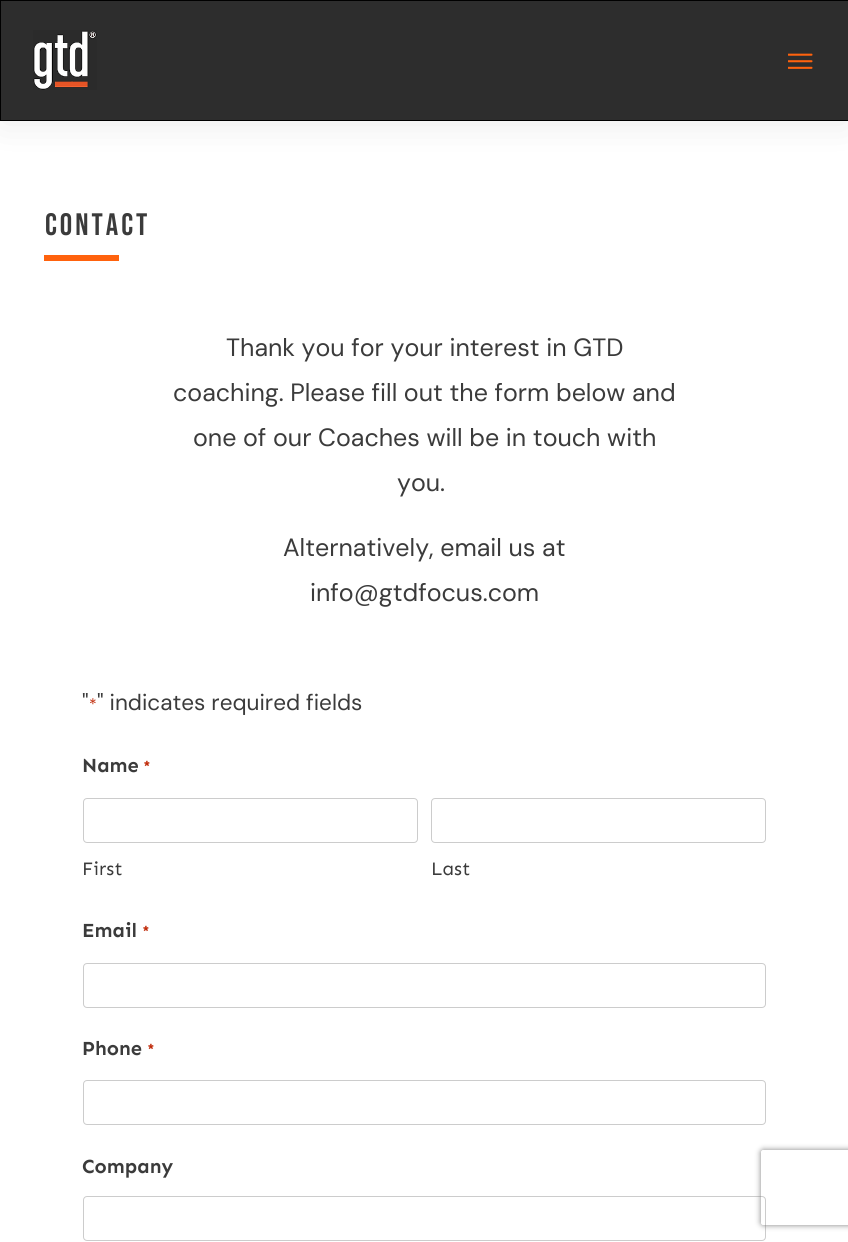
#include <cairo.h>
#include <math.h>
#include <stddef.h>

typedef struct { const char *family; double size; int italic, bold; unsigned color; } style_t;
static cairo_t *ctx;

static void ink(unsigned color) {
    cairo_set_source_rgb(ctx, (color >> 16) / 255.0, (color >> 8 & 255) / 255.0, (color & 255) / 255.0);
}

static void write(double x, double y, const char *s, const style_t *st) {
    cairo_select_font_face(ctx, st->family, st->italic ? CAIRO_FONT_SLANT_ITALIC : CAIRO_FONT_SLANT_NORMAL,
        st->bold ? CAIRO_FONT_WEIGHT_BOLD : CAIRO_FONT_WEIGHT_NORMAL);
    cairo_set_font_size(ctx, st->size);
    ink(st->color);
    cairo_move_to(ctx, x, y);
    cairo_show_text(ctx, s);
}

static void write_spaced(double x, double y, const char *s, double letter, double word) {
    cairo_move_to(ctx, x, y);
    while (*s) {
        char ch[5] = {0};
        int n = 0;
        do ch[n++] = *s++; while ((*s & 0xC0) == 0x80);
        cairo_show_text(ctx, ch);
        cairo_rel_move_to(ctx, letter + word * (*ch == ' '), 0);
    }
}

static void block(double x, double y, double w, double h, unsigned color) {
    ink(color);
    cairo_rectangle(ctx, x, y, w, h);
    cairo_fill(ctx);
}

static void round_path(double x, double y, double w, double h, double r) {
    cairo_new_sub_path(ctx);
    cairo_arc(ctx, x + w - r, y + h - r, r, 0, M_PI / 2);
    cairo_arc(ctx, x + r, y + h - r, r, M_PI / 2, M_PI);
    cairo_arc(ctx, x + r, y + r, r, M_PI, 1.5 * M_PI);
    cairo_arc(ctx, x + w - r, y + r, r, 1.5 * M_PI, 2 * M_PI);
    cairo_close_path(ctx);
}

static void blur_box(double x, double y, double w, double h, double r, double blur, double alpha) {
    cairo_push_group_with_content(ctx, CAIRO_CONTENT_ALPHA);
    cairo_set_operator(ctx, CAIRO_OPERATOR_SOURCE);
    for (int i = 15; i >= -15 && fmin(w, h) + blur * i / 3 > 0; i -= 2) {
        double e = blur * i / 6;
        cairo_set_source_rgba(ctx, 0, 0, 0, alpha * erfc((i - 1) / 8.5) / 2);
        round_path(x - e, y - e, w + 2 * e, h + 2 * e, fmax(0, fmin(r + e + blur * .6, fmin(w, h) / 2 + e)));
        cairo_fill(ctx);
    }
    cairo_pattern_t *soft = cairo_pop_group(ctx);
    cairo_mask(ctx, soft);
    cairo_pattern_destroy(soft);
}

static void paste(const char *path, double x, double y, double w, double h) {
    cairo_surface_t *image = cairo_image_surface_create_from_png(path);
    cairo_save(ctx);
    cairo_set_source_surface(ctx, image, x, y);
    cairo_rectangle(ctx, x, y, w, h);
    cairo_fill(ctx);
    cairo_restore(ctx);
    cairo_surface_destroy(image);
}

static const style_t s1 = {"DM Sans", 25, 0, 0, 0x3b3b3b};
static const style_t s2 = {"DM Sans", 22.5, 0, 0, 0x3b3b3b};
static const style_t s3 = {"DM Sans", 16, 0, 0, 0xc02b0a};
static const style_t s4 = {"Sen", 20, 0, 1, 0x3b3b3b};
static const style_t s5 = {"Sen", 16, 0, 1, 0xc02b0a};
static const style_t s6 = {"Sen", 19, 0, 0, 0x3b3b3b};

int main(void) {
    cairo_surface_t *surface = cairo_image_surface_create(CAIRO_FORMAT_RGB24, 848, 1242);
    ctx = cairo_create(surface);
    cairo_font_options_t *options = cairo_font_options_create();
    cairo_font_options_set_hint_metrics(options, CAIRO_HINT_METRICS_OFF);
    cairo_font_options_set_hint_style(options, CAIRO_HINT_STYLE_NONE);
    cairo_set_font_options(ctx, options);
    cairo_set_miter_limit(ctx, 4);
    ink(0xffffff);
    cairo_paint(ctx);
    cairo_rectangle(ctx, 0.5, 0.5, 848, 120);
    ink(0x000000);
    cairo_set_line_width(ctx, 1);
    cairo_stroke(ctx);
    ink(0x000000);
    blur_box(1, 4, 847, 119, 0, 19, 0.08);
    block(1, 1, 847, 119, 0x2d2d2d);
    paste("pic1.png", 33, 30, 64, 60);
    paste("pic2.png", 788, 53, 25, 16);
    cairo_select_font_face(ctx, "Bebas Neue", CAIRO_FONT_SLANT_NORMAL, CAIRO_FONT_WEIGHT_NORMAL);
    cairo_set_font_size(ctx, 31);
    ink(0x3b3b3b);
    write_spaced(45, 235, "Contact", 3, 0);
    block(44, 255, 75, 6, 0xff620d);
    write(226, 356, "Thank you for your interest in GTD", &s1);
    write(173, 401, "coaching. Please fill out the form below and", &s1);
    write(193, 446, "one of our Coaches will be in touch with", &s1);
    write(397, 491, "you.", &s1);
    write(283, 556, "Alternatively, email us at", &s1);
    write(310, 601, "info@gtdfocus.com", &s1);
    write(82, 710, "\"", &s2);
    write(89, 710, "*", &s3);
    write(97, 710, "\" indicates required fields", &s2);
    write(82, 772, "Name", &s4);
    write(143, 772, "*", &s5);
    round_path(83.5, 798.5, 334, 44, 3.5);
    ink(0xcccccc);
    cairo_stroke(ctx);
    write(82, 875, "First", &s6);
    round_path(431.5, 798.5, 334, 44, 3.5);
    ink(0xcccccc);
    cairo_stroke(ctx);
    write(431, 875, "Last", &s6);
    write(82, 937, "Email", &s4);
    write(142, 937, "*", &s5);
    round_path(83.5, 963.5, 682, 44, 3.5);
    ink(0xcccccc);
    cairo_stroke(ctx);
    write(82, 1055, "Phone", &s4);
    write(147, 1055, "*", &s5);
    round_path(83.5, 1080.5, 682, 44, 3.5);
    ink(0xcccccc);
    cairo_stroke(ctx);
    write(82, 1173, "Company", &s4);
    round_path(83.5, 1196.5, 682, 44, 3.5);
    ink(0xcccccc);
    cairo_stroke(ctx);
    cairo_save(ctx);
    cairo_set_fill_rule(ctx, CAIRO_FILL_RULE_EVEN_ODD);
    cairo_new_path(ctx);
    cairo_move_to(ctx, 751, 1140);
    cairo_line_to(ctx, 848, 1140);
    cairo_line_to(ctx, 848, 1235);
    cairo_line_to(ctx, 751, 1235);
    cairo_close_path(ctx);
    cairo_move_to(ctx, 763.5, 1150);
    cairo_line_to(ctx, 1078.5, 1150);
    cairo_curve_to(ctx, 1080, 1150, 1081, 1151, 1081, 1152.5);
    cairo_line_to(ctx, 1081, 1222.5);
    cairo_curve_to(ctx, 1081, 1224, 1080, 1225, 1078.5, 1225);
    cairo_line_to(ctx, 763.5, 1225);
    cairo_curve_to(ctx, 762, 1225, 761, 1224, 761, 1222.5);
    cairo_line_to(ctx, 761, 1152.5);
    cairo_curve_to(ctx, 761, 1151, 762, 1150, 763.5, 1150);
    cairo_close_path(ctx);
    cairo_clip(ctx);
    ink(0x808080);
    blur_box(761, 1150, 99, 75, 2.5, 3, 1);
    cairo_restore(ctx);
    cairo_surface_write_to_png(surface, "screenshot.png");
    cairo_font_options_destroy(options);
    cairo_destroy(ctx);
    cairo_surface_destroy(surface);
    return 0;
}
